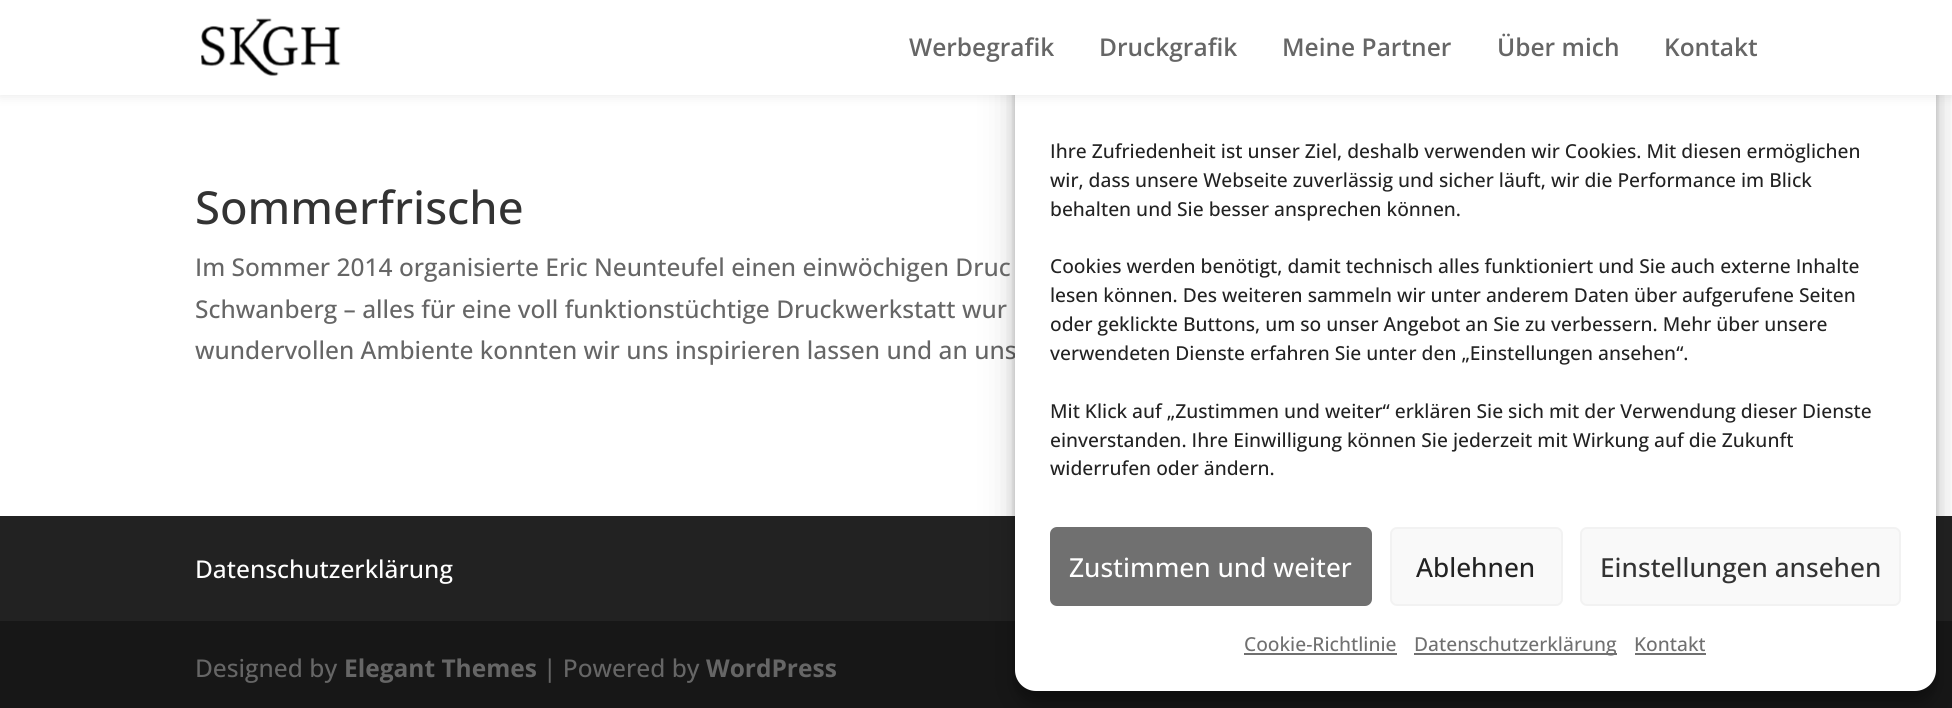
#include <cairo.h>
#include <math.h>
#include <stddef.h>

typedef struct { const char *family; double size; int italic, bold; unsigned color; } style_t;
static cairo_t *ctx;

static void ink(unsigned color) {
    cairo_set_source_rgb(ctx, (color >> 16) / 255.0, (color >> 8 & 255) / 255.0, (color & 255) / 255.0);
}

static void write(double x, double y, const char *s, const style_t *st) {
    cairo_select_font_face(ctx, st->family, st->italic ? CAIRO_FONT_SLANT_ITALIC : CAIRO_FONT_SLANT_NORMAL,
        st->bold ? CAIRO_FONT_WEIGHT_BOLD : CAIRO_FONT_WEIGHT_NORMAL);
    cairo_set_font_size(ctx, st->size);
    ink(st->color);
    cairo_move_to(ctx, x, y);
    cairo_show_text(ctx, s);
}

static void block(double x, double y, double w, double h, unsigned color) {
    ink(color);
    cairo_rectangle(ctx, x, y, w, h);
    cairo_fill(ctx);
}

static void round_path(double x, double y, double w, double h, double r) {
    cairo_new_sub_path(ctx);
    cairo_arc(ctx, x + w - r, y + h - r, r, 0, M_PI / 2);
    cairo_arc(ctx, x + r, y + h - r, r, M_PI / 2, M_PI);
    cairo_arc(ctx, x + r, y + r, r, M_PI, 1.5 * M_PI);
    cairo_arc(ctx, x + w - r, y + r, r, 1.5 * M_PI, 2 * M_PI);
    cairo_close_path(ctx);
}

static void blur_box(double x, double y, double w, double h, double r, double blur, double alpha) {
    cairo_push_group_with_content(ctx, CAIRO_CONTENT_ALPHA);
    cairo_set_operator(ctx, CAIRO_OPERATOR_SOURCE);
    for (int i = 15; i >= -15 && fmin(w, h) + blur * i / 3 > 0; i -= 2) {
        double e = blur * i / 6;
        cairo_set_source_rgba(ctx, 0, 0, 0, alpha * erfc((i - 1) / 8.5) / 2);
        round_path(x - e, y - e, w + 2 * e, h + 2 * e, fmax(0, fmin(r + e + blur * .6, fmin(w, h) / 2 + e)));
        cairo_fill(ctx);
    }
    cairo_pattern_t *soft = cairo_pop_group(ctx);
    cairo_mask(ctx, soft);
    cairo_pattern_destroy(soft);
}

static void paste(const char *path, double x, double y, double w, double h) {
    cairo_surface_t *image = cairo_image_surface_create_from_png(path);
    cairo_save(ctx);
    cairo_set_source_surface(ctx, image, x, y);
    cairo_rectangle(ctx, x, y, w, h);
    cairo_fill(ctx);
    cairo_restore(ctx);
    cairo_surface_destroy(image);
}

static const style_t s1 = {"Open Sans Medium", 24.5, 0, 0, 0x666666};
static const style_t s2 = {"Open Sans SemiBold", 24.5, 0, 0, 0x666666};
static const style_t s3 = {"Open Sans Medium", 45.5, 0, 0, 0x333333};
static const style_t s4 = {"Open Sans Medium", 24.5, 0, 0, 0xffffff};
static const style_t s5 = {"Open Sans", 24.5, 0, 1, 0x666666};
static const style_t s6 = {"Open Sans Medium", 19.25, 0, 0, 0x222222};
static const style_t s7 = {"Open Sans Medium", 26.25, 0, 0, 0xffffff};
static const style_t s8 = {"Open Sans Medium", 26.25, 0, 0, 0x222222};
static const style_t s9 = {"Open Sans Medium", 26.25, 0, 0, 0x333333};
static const style_t s10 = {"Open Sans Medium", 19.25, 0, 0, 0x707070};

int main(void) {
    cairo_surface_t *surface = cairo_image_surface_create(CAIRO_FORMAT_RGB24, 1952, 708);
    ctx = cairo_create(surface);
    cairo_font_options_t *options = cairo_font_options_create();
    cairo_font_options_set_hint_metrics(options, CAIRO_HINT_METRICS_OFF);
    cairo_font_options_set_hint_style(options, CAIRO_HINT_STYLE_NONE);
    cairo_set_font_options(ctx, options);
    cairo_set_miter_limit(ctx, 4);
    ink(0xffffff);
    cairo_paint(ctx);
    write(195, 359, "wundervollen Ambiente konnten wir uns inspirieren lassen und an uns", &s1);
    block(0, 516, 1952, 105, 0x222222);
    block(0, 621, 1952, 87, 0x171717);
    ink(0x000000);
    blur_box(1015, 44, 921, 658, 21, 5, 0.23);
    blur_box(1015, 51, 921, 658, 21, 17.5, 0.19);
    ink(0xffffff);
    round_path(1015, 33, 921, 658, 21);
    cairo_fill(ctx);
    ink(0x000000);
    blur_box(0, 0, 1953, 95, 0, 6, 0.1);
    block(0, 0, 1952, 95, 0xffffff);
    paste("pic1.png", 201, 18, 140, 58);
    write(909, 56, "Werbegrafik", &s2);
    write(1099, 56, "Druckgrafik", &s2);
    write(1282, 56, "Meine Partner", &s2);
    write(1497, 56, "Über mich", &s2);
    write(1664, 56, "Kontakt", &s2);
    write(195, 224, "Sommerfrische", &s3);
    write(195, 276, "Im Sommer 2014 organisierte Eric Neunteufel einen einwöchigen Druc", &s1);
    write(195, 318, "Schwanberg – alles für eine voll funktionstüchtige Druckwerkstatt wur", &s1);
    write(195, 578, "Datenschutzerklärung", &s4);
    write(195, 677, "Designed by", &s1);
    write(344, 677, "Elegant Themes", &s5);
    write(543, 677, "| Powered by", &s1);
    write(706, 677, "WordPress", &s5);
    write(1050, 158, "Ihre Zufriedenheit ist unser Ziel, deshalb verwenden wir Cookies. Mit diesen ermöglichen", &s6);
    write(1050, 187, "wir, dass unsere Webseite zuverlässig und sicher läuft, wir die Performance im Blick", &s6);
    write(1050, 216, "behalten und Sie besser ansprechen können.", &s6);
    write(1050, 273, "Cookies werden benötigt, damit technisch alles funktioniert und Sie auch externe Inhalte", &s6);
    write(1050, 302, "lesen können. Des weiteren sammeln wir unter anderem Daten über aufgerufene Seiten", &s6);
    write(1050, 331, "oder geklickte Buttons, um so unser Angebot an Sie zu verbessern. Mehr über unsere", &s6);
    write(1050, 360, "verwendeten Dienste erfahren Sie unter den „Einstellungen ansehen“.", &s6);
    write(1050, 418, "Mit Klick auf „Zustimmen und weiter“ erklären Sie sich mit der Verwendung dieser Dienste", &s6);
    write(1050, 447, "einverstanden. Ihre Einwilligung können Sie jederzeit mit Wirkung auf die Zukunft", &s6);
    write(1050, 475, "widerrufen oder ändern.", &s6);
    ink(0x707070);
    round_path(1051, 528, 320, 77, 6);
    cairo_fill_preserve(ctx);
    cairo_stroke(ctx);
    write(1069, 577, "Zustimmen und weiter", &s7);
    ink(0xf9f9f9);
    round_path(1391, 528, 171, 77, 6);
    cairo_fill_preserve(ctx);
    ink(0xf2f2f2);
    cairo_stroke(ctx);
    write(1416, 577, "Ablehnen", &s8);
    ink(0xf9f9f9);
    round_path(1581, 528, 319, 77, 6);
    cairo_fill_preserve(ctx);
    ink(0xf2f2f2);
    cairo_stroke(ctx);
    write(1600, 577, "Einstellungen ansehen", &s9);
    write(1244, 651, "Cookie-Richtlinie", &s10);
    block(1244, 653, 153, 2, 0x707070);
    block(1414, 653, 203, 2, 0x707070);
    write(1414, 651, "Datenschutzerklärung", &s10);
    write(1634, 651, "Kontakt", &s10);
    block(1635, 653, 71, 2, 0x707070);
    cairo_surface_write_to_png(surface, "screenshot.png");
    cairo_font_options_destroy(options);
    cairo_destroy(ctx);
    cairo_surface_destroy(surface);
    return 0;
}
